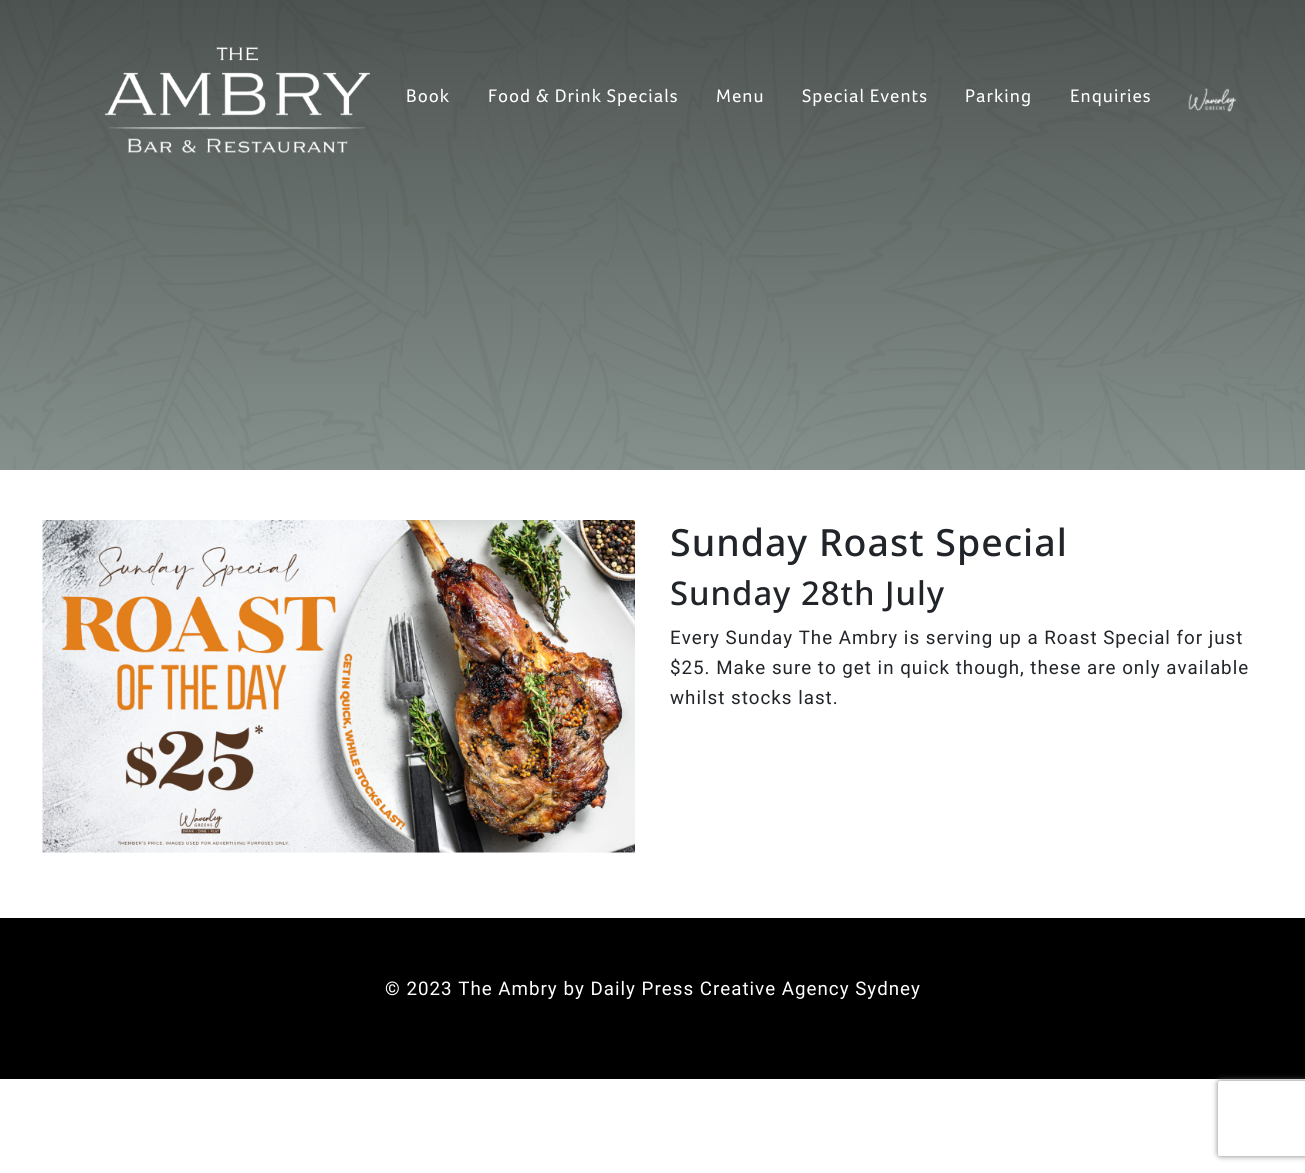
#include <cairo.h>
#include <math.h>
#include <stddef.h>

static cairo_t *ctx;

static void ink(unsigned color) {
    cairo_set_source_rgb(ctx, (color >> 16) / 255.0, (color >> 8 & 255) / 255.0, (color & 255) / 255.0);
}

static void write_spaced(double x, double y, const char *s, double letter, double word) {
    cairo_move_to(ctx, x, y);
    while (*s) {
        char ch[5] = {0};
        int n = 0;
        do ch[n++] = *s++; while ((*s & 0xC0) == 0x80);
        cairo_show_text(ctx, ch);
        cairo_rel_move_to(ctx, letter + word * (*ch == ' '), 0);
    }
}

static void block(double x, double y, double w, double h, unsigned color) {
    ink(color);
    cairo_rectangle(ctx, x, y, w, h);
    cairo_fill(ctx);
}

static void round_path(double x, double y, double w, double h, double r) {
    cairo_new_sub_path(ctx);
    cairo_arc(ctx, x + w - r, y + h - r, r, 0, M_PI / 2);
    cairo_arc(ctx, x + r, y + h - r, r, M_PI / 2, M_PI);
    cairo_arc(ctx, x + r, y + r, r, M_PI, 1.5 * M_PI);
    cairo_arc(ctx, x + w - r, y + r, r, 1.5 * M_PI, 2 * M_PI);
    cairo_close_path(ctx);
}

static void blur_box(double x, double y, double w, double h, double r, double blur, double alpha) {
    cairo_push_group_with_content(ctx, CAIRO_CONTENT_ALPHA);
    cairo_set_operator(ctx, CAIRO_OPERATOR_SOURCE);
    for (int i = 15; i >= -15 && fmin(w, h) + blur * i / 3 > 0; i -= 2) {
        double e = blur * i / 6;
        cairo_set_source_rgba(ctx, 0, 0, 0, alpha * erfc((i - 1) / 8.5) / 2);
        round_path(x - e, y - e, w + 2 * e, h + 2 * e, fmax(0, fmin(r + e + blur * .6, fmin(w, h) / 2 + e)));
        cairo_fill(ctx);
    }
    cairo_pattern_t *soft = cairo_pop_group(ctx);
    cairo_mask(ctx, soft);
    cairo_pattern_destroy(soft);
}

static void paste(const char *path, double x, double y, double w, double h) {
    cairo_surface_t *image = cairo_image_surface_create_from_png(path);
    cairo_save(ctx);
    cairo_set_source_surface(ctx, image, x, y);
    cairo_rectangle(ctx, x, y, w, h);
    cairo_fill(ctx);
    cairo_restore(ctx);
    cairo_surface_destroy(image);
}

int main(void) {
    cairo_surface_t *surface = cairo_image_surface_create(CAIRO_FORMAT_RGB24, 1305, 1173);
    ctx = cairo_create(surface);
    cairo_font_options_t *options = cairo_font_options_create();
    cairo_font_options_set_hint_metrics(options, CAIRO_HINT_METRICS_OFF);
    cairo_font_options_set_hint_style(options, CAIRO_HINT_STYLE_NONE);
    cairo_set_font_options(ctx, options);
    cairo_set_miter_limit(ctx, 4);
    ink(0xffffff);
    cairo_paint(ctx);
    paste("pic1.png", 0, 0, 1305, 470);
    paste("pic2.png", 105, 47, 265, 106);
    cairo_select_font_face(ctx, "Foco", CAIRO_FONT_SLANT_NORMAL, CAIRO_FONT_WEIGHT_NORMAL);
    cairo_set_font_size(ctx, 18.75);
    ink(0xffffff);
    write_spaced(406, 102, "Book", 1, 0);
    write_spaced(488, 102, "Food & Drink Specials", 1, 0);
    write_spaced(716, 102, "Menu", 1, 0);
    write_spaced(802, 102, "Special Events", 1, 0);
    write_spaced(965, 102, "Parking", 1, 0);
    write_spaced(1070, 102, "Enquiries", 1, 0);
    paste("pic3.png", 1188, 88, 49, 24);
    paste("pic4.png", 42, 520, 593, 333);
    cairo_select_font_face(ctx, "Noto Sans Medium", CAIRO_FONT_SLANT_NORMAL, CAIRO_FONT_WEIGHT_NORMAL);
    cairo_set_font_size(ctx, 37.5);
    ink(0x212529);
    write_spaced(670, 556, "Sunday Roast Special", 1, 0);
    cairo_set_font_size(ctx, 32.75);
    write_spaced(670, 605, "Sunday 28th July", 1, 0);
    cairo_select_font_face(ctx, "Roboto", CAIRO_FONT_SLANT_NORMAL, CAIRO_FONT_WEIGHT_NORMAL);
    cairo_set_font_size(ctx, 18.75);
    write_spaced(670, 644, "Every Sunday The Ambry is serving up a Roast Special for just", 1, 0);
    write_spaced(670, 674, "$25. Make sure to get in quick though, these are only available", 1, 0);
    write_spaced(670, 704, "whilst stocks last.", 1, 0);
    block(0, 918, 1305, 161, 0x000000);
    ink(0xffffff);
    write_spaced(385, 995, "© 2023 The Ambry by Daily Press Creative Agency Sydney", 1, 0);
    cairo_save(ctx);
    cairo_set_fill_rule(ctx, CAIRO_FILL_RULE_EVEN_ODD);
    cairo_new_path(ctx);
    cairo_move_to(ctx, 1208, 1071);
    cairo_line_to(ctx, 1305, 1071);
    cairo_line_to(ctx, 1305, 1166);
    cairo_line_to(ctx, 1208, 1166);
    cairo_close_path(ctx);
    cairo_move_to(ctx, 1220.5, 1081);
    cairo_line_to(ctx, 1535.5, 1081);
    cairo_curve_to(ctx, 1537, 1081, 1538, 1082, 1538, 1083.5);
    cairo_line_to(ctx, 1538, 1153.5);
    cairo_curve_to(ctx, 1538, 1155, 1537, 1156, 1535.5, 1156);
    cairo_line_to(ctx, 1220.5, 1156);
    cairo_curve_to(ctx, 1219, 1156, 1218, 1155, 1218, 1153.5);
    cairo_line_to(ctx, 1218, 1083.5);
    cairo_curve_to(ctx, 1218, 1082, 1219, 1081, 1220.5, 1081);
    cairo_close_path(ctx);
    cairo_clip(ctx);
    ink(0x808080);
    blur_box(1218, 1081, 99, 75, 2.5, 3, 1);
    cairo_restore(ctx);
    cairo_surface_write_to_png(surface, "screenshot.png");
    cairo_font_options_destroy(options);
    cairo_destroy(ctx);
    cairo_surface_destroy(surface);
    return 0;
}
